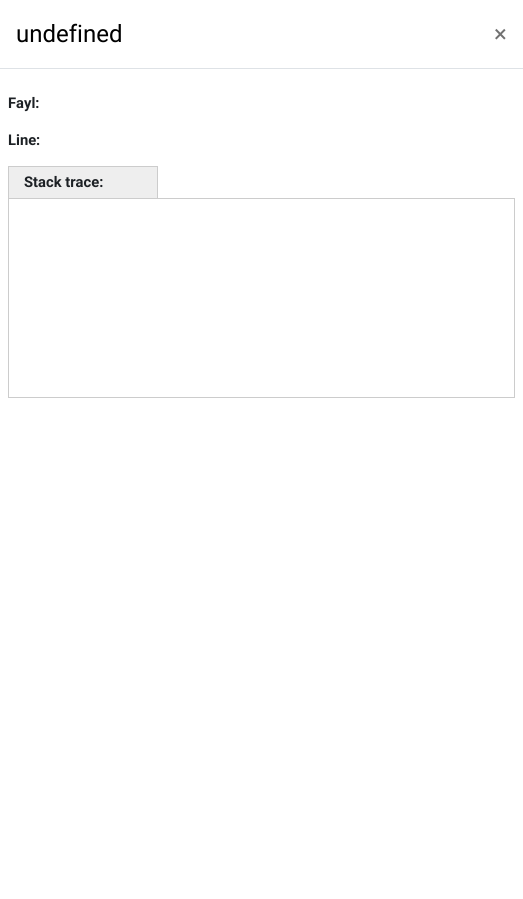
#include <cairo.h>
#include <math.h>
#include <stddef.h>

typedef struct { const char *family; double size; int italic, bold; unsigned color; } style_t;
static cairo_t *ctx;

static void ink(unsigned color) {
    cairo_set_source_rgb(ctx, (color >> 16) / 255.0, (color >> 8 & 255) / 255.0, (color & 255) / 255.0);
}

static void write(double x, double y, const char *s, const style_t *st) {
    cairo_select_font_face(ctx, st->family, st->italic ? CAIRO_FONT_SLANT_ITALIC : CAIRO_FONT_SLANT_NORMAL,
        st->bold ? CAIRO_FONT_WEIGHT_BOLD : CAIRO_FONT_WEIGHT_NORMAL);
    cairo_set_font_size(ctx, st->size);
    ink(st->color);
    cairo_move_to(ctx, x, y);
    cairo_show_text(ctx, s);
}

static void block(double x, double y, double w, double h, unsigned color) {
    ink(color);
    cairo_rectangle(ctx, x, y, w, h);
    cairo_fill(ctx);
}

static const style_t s1 = {"Roboto", 24, 0, 0, 0x000000};
static const style_t s2 = {"Roboto", 24, 0, 0, 0x717171};
static const style_t s3 = {"Roboto", 14.75, 0, 1, 0x1d2125};

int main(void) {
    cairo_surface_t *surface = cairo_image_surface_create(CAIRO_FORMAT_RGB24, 523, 899);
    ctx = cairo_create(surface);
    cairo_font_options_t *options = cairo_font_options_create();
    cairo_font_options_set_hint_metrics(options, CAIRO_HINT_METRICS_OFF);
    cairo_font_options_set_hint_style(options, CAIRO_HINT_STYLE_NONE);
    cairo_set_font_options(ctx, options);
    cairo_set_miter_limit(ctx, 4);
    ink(0xffffff);
    cairo_paint(ctx);
    block(0, 68, 523, 1, 0xdee2e6);
    write(16, 42, "undefined", &s1);
    write(494, 42, "×", &s2);
    write(8, 108, "Fayl:", &s3);
    write(8, 145, "Line:", &s3);
    block(9, 167, 148, 31, 0xeeeeee);
    block(8, 166, 150, 1, 0xcccccc);
    block(157, 166, 1, 32, 0xcccccc);
    block(8, 166, 1, 32, 0xcccccc);
    write(24, 187, "Stack trace:", &s3);
    cairo_rectangle(ctx, 8.5, 198.5, 506, 199);
    ink(0xcccccc);
    cairo_set_line_width(ctx, 1);
    cairo_stroke(ctx);
    cairo_surface_write_to_png(surface, "screenshot.png");
    cairo_font_options_destroy(options);
    cairo_destroy(ctx);
    cairo_surface_destroy(surface);
    return 0;
}
